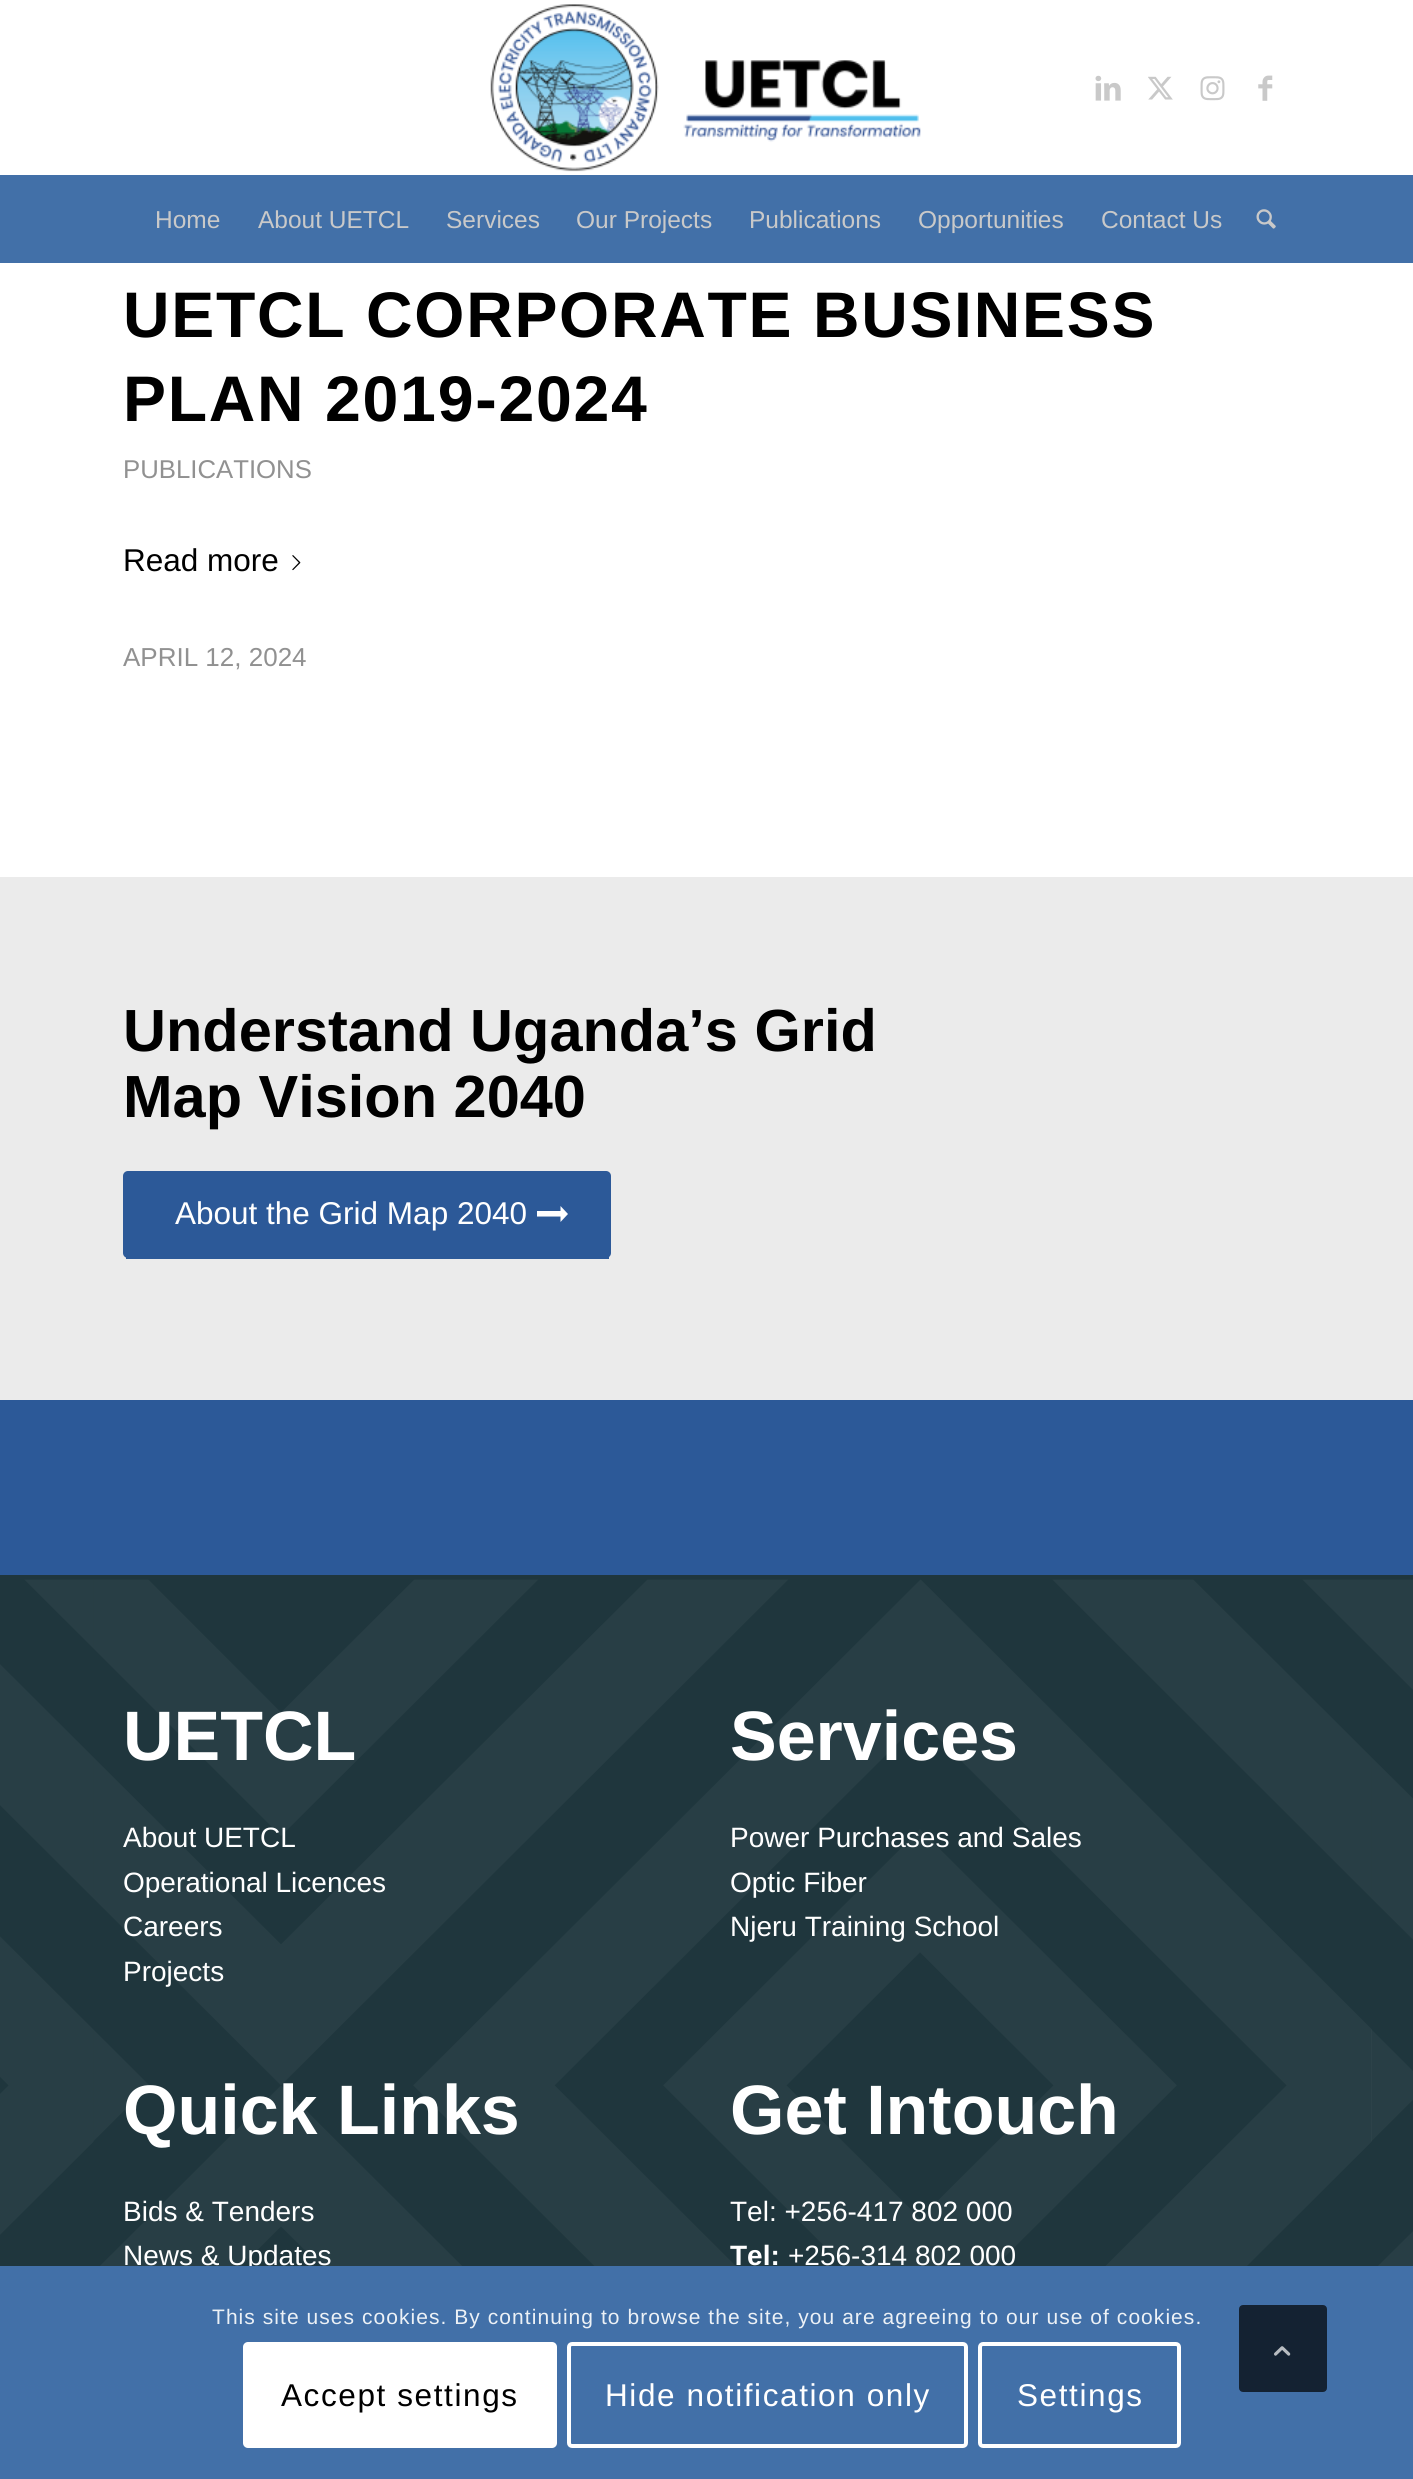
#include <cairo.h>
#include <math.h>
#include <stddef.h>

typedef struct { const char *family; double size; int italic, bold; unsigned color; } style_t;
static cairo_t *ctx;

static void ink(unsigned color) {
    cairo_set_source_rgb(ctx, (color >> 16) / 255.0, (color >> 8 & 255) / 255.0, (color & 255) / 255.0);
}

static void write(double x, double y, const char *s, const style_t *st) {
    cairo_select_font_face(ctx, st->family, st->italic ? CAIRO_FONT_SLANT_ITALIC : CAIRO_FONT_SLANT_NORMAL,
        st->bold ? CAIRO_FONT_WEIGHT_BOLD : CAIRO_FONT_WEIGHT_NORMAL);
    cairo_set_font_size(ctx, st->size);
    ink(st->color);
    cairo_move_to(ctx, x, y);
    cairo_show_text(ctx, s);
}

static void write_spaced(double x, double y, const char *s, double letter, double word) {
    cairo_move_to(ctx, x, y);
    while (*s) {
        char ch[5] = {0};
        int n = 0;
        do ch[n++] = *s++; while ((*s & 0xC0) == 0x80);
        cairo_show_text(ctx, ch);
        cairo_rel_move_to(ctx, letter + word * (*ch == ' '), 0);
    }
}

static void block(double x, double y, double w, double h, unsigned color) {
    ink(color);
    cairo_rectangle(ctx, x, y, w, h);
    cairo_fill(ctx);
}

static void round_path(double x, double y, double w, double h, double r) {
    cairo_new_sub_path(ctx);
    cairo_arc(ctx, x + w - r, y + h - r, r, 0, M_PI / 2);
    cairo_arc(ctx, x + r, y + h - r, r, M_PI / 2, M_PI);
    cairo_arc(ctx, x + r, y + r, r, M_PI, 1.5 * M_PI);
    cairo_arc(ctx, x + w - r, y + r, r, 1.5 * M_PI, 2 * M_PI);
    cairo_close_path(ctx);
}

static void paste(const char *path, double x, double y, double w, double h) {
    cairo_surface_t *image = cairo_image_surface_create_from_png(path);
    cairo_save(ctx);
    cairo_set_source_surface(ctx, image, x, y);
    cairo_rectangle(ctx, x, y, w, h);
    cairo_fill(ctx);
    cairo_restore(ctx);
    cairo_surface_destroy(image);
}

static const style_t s1 = {"Liberation Sans", 24.5, 0, 0, 0xc9c9c9};
static const style_t s2 = {"Liberation Sans", 25.75, 0, 0, 0x919191};
static const style_t s3 = {"Liberation Sans", 31.5, 0, 0, 0x000000};
static const style_t s4 = {"Liberation Sans", 26, 0, 0, 0x919191};
static const style_t s5 = {"Liberation Sans", 59.5, 0, 1, 0x000000};
static const style_t s6 = {"Liberation Sans", 31.5, 0, 0, 0xffffff};
static const style_t s7 = {"Liberation Sans", 70, 0, 1, 0xffffff};
static const style_t s8 = {"Liberation Sans", 28, 0, 0, 0xffffff};
static const style_t s9 = {"Liberation Sans", 28, 0, 1, 0xffffff};

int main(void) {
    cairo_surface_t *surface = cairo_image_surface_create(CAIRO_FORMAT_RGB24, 1413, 2479);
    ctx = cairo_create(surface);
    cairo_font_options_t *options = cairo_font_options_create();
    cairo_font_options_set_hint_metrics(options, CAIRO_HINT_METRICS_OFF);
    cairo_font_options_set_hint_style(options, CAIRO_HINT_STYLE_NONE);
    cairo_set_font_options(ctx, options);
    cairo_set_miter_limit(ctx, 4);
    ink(0xffffff);
    cairo_paint(ctx);
    paste("pic1.png", 490, 4, 431, 168);
    paste("pic2.png", 1095, 75, 26, 26);
    paste("pic3.png", 1148, 76, 25, 24);
    paste("pic4.png", 1200, 76, 25, 25);
    paste("pic5.png", 1258, 75, 15, 26);
    block(0, 175, 1413, 88, 0x4270a8);
    write(155, 228, "Home", &s1);
    write(258, 228, "About UETCL", &s1);
    write(446, 228, "Services", &s1);
    write(576, 228, "Our Projects", &s1);
    write(749, 228, "Publications", &s1);
    write(918, 228, "Opportunities", &s1);
    write(1101, 228, "Contact Us", &s1);
    paste("pic6.png", 1256, 209, 20, 20);
    cairo_select_font_face(ctx, "Liberation Sans", CAIRO_FONT_SLANT_NORMAL, CAIRO_FONT_WEIGHT_BOLD);
    cairo_set_font_size(ctx, 64.4);
    ink(0x000000);
    write_spaced(123, 337, "UETCL CORPORATE BUSINESS", 1.75, 0);
    write_spaced(123, 421, "PLAN 2019-2024", 1.75, 0);
    write(123, 478, "PUBLICATIONS", &s2);
    write(123, 571, "Read more", &s3);
    paste("pic7.png", 292, 555, 9, 16);
    write(123, 666, "APRIL 12, 2024", &s4);
    block(0, 877, 1413, 523, 0xebebeb);
    write(123, 1051, "Understand Uganda’s Grid", &s5);
    write(123, 1117, "Map Vision 2040", &s5);
    ink(0x2c5998);
    round_path(123, 1171, 488, 87, 5);
    cairo_fill(ctx);
    block(126, 1257, 483, 2, 0x2c5998);
    write(175, 1224, "About the Grid Map 2040", &s6);
    cairo_new_path(ctx);
    cairo_move_to(ctx, 560.5, 1222);
    cairo_line_to(ctx, 560.5, 1216.5);
    cairo_line_to(ctx, 537, 1216.5);
    cairo_line_to(ctx, 537, 1211);
    cairo_line_to(ctx, 560.5, 1211);
    cairo_line_to(ctx, 560.5, 1206);
    cairo_line_to(ctx, 568, 1214);
    cairo_close_path(ctx);
    cairo_fill(ctx);
    block(0, 1400, 1413, 175, 0x2c5998);
    paste("pic8.png", 0, 1575, 1413, 691);
    write(123, 1760, "UETCL", &s7);
    write(123, 1847, "About UETCL", &s8);
    write(123, 1892, "Operational Licences", &s8);
    write(123, 1936, "Careers", &s8);
    write(123, 1981, "Projects", &s8);
    write(730, 1760, "Services", &s7);
    write(730, 1847, "Power Purchases and Sales", &s8);
    write(730, 1892, "Optic Fiber", &s8);
    write(730, 1936, "Njeru Training School", &s8);
    write(123, 2134, "Quick Links", &s7);
    write(123, 2221, "Bids & Tenders", &s8);
    write(123, 2265, "News & Updates", &s8);
    write(730, 2134, "Get Intouch", &s7);
    write(730, 2221, "Tel: +256-417 802 000", &s8);
    write(730, 2265, "Tel:", &s9);
    write(788, 2265, "+256-314 802 000", &s8);
    block(0, 2266, 1413, 213, 0x4270a8);
    cairo_set_font_size(ctx, 21);
    ink(0xecf1f6);
    write_spaced(212, 2324, "This site uses cookies. By continuing to browse the site, you are agreeing to our use of cookies.", 1.05, 0);
    ink(0xffffff);
    round_path(243, 2342, 314, 106, 5);
    cairo_fill(ctx);
    cairo_set_font_size(ctx, 31.5);
    ink(0x000000);
    write_spaced(281, 2406, "Accept settings", 1.6, 0);
    round_path(569, 2344, 397, 102, 3);
    ink(0xffffff);
    cairo_set_line_width(ctx, 4);
    cairo_stroke(ctx);
    write_spaced(605, 2406, "Hide notification only", 1.6, 0);
    round_path(980, 2344, 199, 102, 3);
    cairo_stroke(ctx);
    write_spaced(1017, 2406, "Settings", 1.6, 0);
    ink(0x142232);
    round_path(1240, 2306, 86, 85, 3);
    cairo_fill_preserve(ctx);
    cairo_set_line_width(ctx, 2);
    cairo_stroke(ctx);
    paste("pic9.png", 1274, 2346, 17, 10);
    cairo_surface_write_to_png(surface, "screenshot.png");
    cairo_font_options_destroy(options);
    cairo_destroy(ctx);
    cairo_surface_destroy(surface);
    return 0;
}
